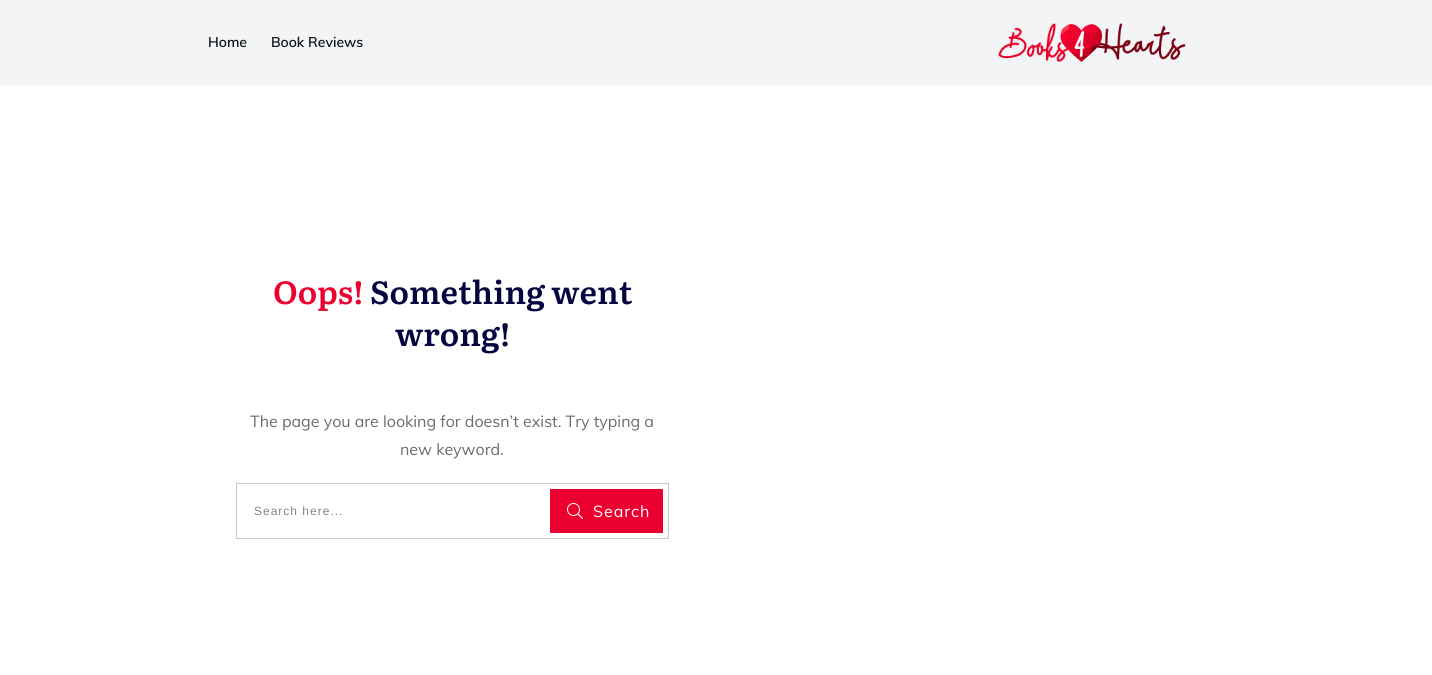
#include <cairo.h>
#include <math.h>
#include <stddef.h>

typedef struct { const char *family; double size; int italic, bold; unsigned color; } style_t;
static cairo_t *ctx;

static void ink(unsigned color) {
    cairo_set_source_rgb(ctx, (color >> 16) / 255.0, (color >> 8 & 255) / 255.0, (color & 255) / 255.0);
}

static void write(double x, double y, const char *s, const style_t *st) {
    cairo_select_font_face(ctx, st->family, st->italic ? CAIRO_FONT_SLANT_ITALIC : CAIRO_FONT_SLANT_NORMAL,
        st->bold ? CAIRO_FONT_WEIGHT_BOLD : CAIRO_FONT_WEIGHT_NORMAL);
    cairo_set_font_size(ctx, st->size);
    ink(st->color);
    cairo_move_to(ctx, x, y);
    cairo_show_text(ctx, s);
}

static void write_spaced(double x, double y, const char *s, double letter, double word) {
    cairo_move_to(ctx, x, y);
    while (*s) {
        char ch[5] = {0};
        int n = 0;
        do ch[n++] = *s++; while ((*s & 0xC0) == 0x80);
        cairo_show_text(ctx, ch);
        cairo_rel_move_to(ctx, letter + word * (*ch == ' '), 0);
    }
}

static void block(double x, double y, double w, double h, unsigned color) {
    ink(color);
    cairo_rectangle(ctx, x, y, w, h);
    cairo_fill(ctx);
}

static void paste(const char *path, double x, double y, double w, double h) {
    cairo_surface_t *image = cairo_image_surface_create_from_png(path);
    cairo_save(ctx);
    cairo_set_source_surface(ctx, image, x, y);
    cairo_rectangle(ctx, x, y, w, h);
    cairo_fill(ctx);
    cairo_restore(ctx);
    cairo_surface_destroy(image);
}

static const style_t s1 = {"Muli SemiBold", 14, 0, 0, 0x0c1115};
static const style_t s2 = {"Literata SemiBold", 32, 0, 0, 0xeb002f};
static const style_t s3 = {"Literata SemiBold", 32, 0, 0, 0x050541};
static const style_t s4 = {"Muli", 16, 0, 0, 0x6a6b6c};

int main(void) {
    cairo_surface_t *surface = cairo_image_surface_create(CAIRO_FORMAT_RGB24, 1432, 675);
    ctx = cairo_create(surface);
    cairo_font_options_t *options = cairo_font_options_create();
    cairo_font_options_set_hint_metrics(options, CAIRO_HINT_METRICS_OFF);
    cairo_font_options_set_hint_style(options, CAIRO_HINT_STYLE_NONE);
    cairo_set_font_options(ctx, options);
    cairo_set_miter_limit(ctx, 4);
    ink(0xffffff);
    cairo_paint(ctx);
    block(0, 0, 1432, 85, 0xf2f4f5);
    write(208, 47, "Home", &s1);
    write(271, 47, "Book Reviews", &s1);
    paste("pic1.png", 998, 23, 188, 39);
    write(273, 304, "Oops!", &s2);
    write(370, 304, "Something went", &s3);
    write(395, 346, "wrong!", &s3);
    write(250, 427, "The page you are looking for doesn’t exist. Try typing a", &s4);
    write(400, 455, "new keyword.", &s4);
    cairo_rectangle(ctx, 236.5, 483.5, 432, 55);
    ink(0xc7c7c7);
    cairo_set_line_width(ctx, 1);
    cairo_stroke(ctx);
    cairo_select_font_face(ctx, "Liberation Sans", CAIRO_FONT_SLANT_NORMAL, CAIRO_FONT_WEIGHT_NORMAL);
    cairo_set_font_size(ctx, 12);
    ink(0x858585);
    write_spaced(254, 515, "Search here...", 1, 0);
    block(550, 489, 113, 44, 0xeb002f);
    paste("pic2.png", 567, 503, 16, 16);
    cairo_select_font_face(ctx, "Muli", CAIRO_FONT_SLANT_NORMAL, CAIRO_FONT_WEIGHT_NORMAL);
    cairo_set_font_size(ctx, 16);
    ink(0xffffff);
    write_spaced(593, 517, "Search", 1, 0);
    cairo_surface_write_to_png(surface, "screenshot.png");
    cairo_font_options_destroy(options);
    cairo_destroy(ctx);
    cairo_surface_destroy(surface);
    return 0;
}
